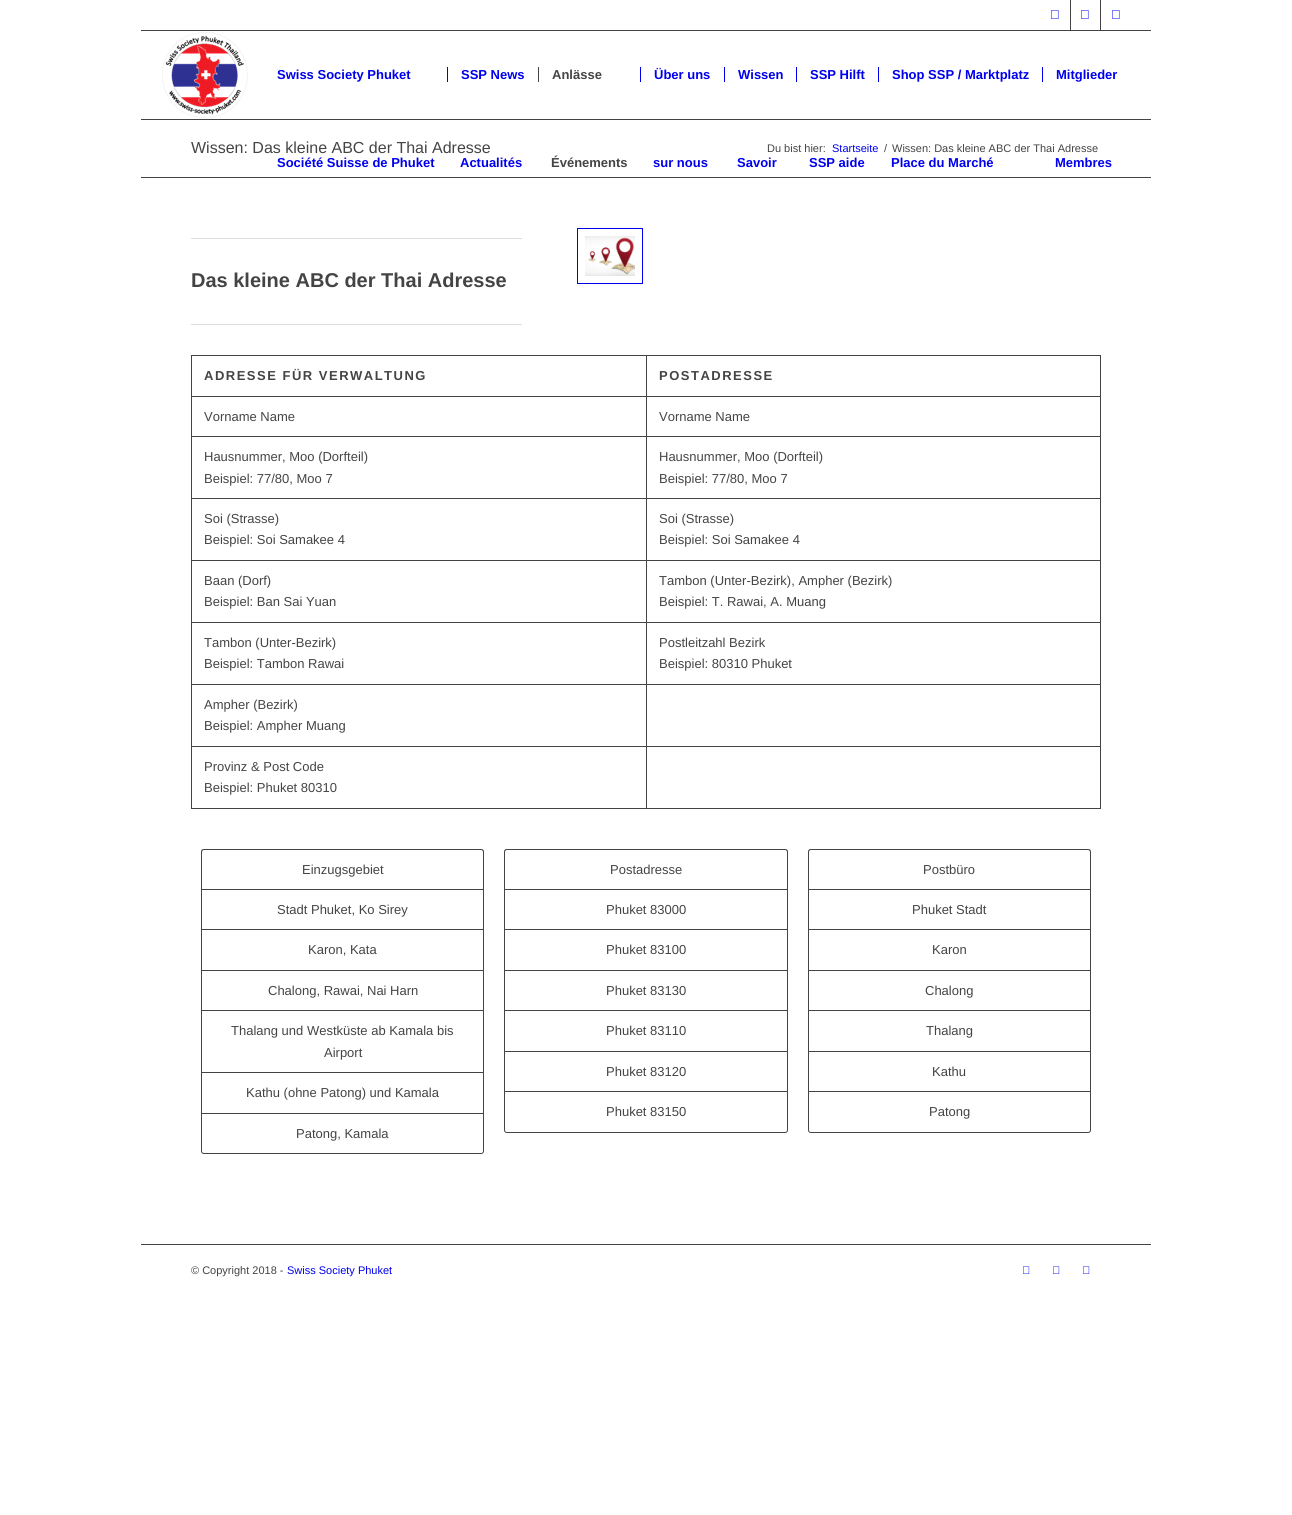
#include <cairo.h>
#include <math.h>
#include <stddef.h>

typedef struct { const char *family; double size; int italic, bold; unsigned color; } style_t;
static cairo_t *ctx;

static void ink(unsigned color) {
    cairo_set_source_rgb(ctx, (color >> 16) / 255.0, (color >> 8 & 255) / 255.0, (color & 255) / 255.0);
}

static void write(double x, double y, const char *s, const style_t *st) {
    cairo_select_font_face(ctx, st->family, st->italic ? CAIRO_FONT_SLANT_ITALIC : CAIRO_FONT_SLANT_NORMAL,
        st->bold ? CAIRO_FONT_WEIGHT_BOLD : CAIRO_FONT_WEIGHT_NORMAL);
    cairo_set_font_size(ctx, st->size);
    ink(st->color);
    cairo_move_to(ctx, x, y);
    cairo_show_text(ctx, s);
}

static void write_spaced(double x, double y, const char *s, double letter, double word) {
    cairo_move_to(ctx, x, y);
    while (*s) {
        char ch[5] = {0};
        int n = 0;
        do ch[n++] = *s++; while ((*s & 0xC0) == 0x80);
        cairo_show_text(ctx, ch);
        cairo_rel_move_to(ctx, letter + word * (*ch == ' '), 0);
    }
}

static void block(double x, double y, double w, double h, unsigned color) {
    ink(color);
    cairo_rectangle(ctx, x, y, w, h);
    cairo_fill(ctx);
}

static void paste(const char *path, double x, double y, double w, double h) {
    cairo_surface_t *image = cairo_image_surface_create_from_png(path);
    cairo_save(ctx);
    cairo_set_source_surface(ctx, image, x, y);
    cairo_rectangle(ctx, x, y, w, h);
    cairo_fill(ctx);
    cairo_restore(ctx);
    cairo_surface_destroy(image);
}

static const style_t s1 = {"Liberation Sans", 13, 0, 1, 0x0000ee};
static const style_t s2 = {"Liberation Sans", 13, 0, 1, 0x444444};
static const style_t s3 = {"Liberation Sans", 16, 0, 0, 0x444444};
static const style_t s4 = {"Liberation Sans", 11, 0, 0, 0x444444};
static const style_t s5 = {"Liberation Sans", 11, 0, 0, 0x0000ee};
static const style_t s6 = {"Liberation Sans", 20, 0, 1, 0x444444};
static const style_t s7 = {"Liberation Sans", 13, 0, 0, 0x444444};

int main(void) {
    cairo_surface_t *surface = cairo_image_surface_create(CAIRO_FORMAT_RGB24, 1292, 1515);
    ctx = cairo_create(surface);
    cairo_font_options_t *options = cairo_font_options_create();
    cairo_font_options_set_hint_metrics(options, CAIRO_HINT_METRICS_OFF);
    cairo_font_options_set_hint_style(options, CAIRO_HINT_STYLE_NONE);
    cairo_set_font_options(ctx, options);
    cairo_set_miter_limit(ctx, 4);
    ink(0xffffff);
    cairo_paint(ctx);
    block(1070, 0, 1, 30, 0x444444);
    paste("pic1.png", 1051, 10, 8, 9);
    block(1100, 0, 1, 30, 0x444444);
    paste("pic1.png", 1081, 10, 8, 9);
    paste("pic1.png", 1112, 10, 8, 9);
    block(141, 30, 1010, 1, 0x444444);
    paste("pic2.png", 162, 32, 86, 86);
    write(277, 79, "Swiss Society Phuket", &s1);
    write(277, 167, "Société Suisse de Phuket", &s1);
    write(461, 79, "SSP News", &s1);
    block(447, 67, 1, 15, 0x0000ee);
    write(460, 167, "Actualités", &s1);
    write(552, 79, "Anlässe", &s2);
    block(538, 67, 1, 15, 0x444444);
    write(551, 167, "Événements", &s2);
    write(654, 79, "Über uns", &s1);
    block(640, 67, 1, 15, 0x0000ee);
    write(653, 167, "sur nous", &s1);
    write(738, 79, "Wissen", &s1);
    block(724, 67, 1, 15, 0x0000ee);
    write(737, 167, "Savoir", &s1);
    write(810, 79, "SSP Hilft", &s1);
    block(796, 67, 1, 15, 0x0000ee);
    write(809, 167, "SSP aide", &s1);
    write(892, 79, "Shop SSP / Marktplatz", &s1);
    block(878, 67, 1, 15, 0x0000ee);
    write(891, 167, "Place du Marché", &s1);
    write(1056, 79, "Mitglieder", &s1);
    block(1042, 67, 1, 15, 0x0000ee);
    write(1055, 167, "Membres", &s1);
    block(141, 119, 1010, 1, 0x444444);
    write(191, 153, "Wissen: Das kleine ABC der Thai Adresse", &s3);
    write(767, 152, "Du bist hier:", &s4);
    write(832, 152, "Startseite", &s5);
    write(884, 152, "/", &s4);
    write(892, 152, "Wissen: Das kleine ABC der Thai Adresse", &s4);
    block(141, 177, 1010, 1, 0x444444);
    block(191, 238, 331, 1, 0xdddddd);
    write(191, 287, "Das kleine ABC der Thai Adresse", &s6);
    block(191, 324, 331, 1, 0xdddddd);
    cairo_rectangle(ctx, 577.5, 228.5, 65, 55);
    ink(0x0000ee);
    cairo_set_line_width(ctx, 1);
    cairo_stroke(ctx);
    paste("pic3.png", 585, 236, 50, 40);
    block(191, 355, 910, 1, 0x444444);
    block(1100, 396, 1, 413, 0x444444);
    block(1100, 355, 1, 42, 0x444444);
    block(646, 808, 455, 1, 0x444444);
    block(646, 746, 1, 63, 0x444444);
    block(646, 746, 455, 1, 0x444444);
    block(646, 684, 1, 63, 0x444444);
    block(646, 684, 455, 1, 0x444444);
    block(646, 622, 1, 63, 0x444444);
    block(646, 622, 455, 1, 0x444444);
    block(646, 560, 1, 63, 0x444444);
    block(646, 560, 455, 1, 0x444444);
    block(646, 498, 1, 63, 0x444444);
    block(646, 498, 455, 1, 0x444444);
    block(646, 436, 1, 63, 0x444444);
    block(646, 436, 455, 1, 0x444444);
    block(646, 396, 1, 41, 0x444444);
    block(646, 396, 455, 1, 0x444444);
    block(646, 355, 1, 42, 0x444444);
    block(191, 808, 456, 1, 0x444444);
    block(191, 746, 1, 63, 0x444444);
    block(191, 746, 456, 1, 0x444444);
    block(191, 684, 1, 63, 0x444444);
    block(191, 684, 456, 1, 0x444444);
    block(191, 622, 1, 63, 0x444444);
    block(191, 622, 456, 1, 0x444444);
    block(191, 560, 1, 63, 0x444444);
    block(191, 560, 456, 1, 0x444444);
    block(191, 498, 1, 63, 0x444444);
    block(191, 498, 456, 1, 0x444444);
    block(191, 436, 1, 63, 0x444444);
    block(191, 436, 456, 1, 0x444444);
    block(191, 396, 1, 41, 0x444444);
    block(191, 396, 456, 1, 0x444444);
    block(191, 355, 1, 42, 0x444444);
    cairo_set_font_size(ctx, 13);
    write_spaced(204, 380, "ADRESSE FÜR VERWALTUNG", 1.5, 0);
    write_spaced(659, 380, "POSTADRESSE", 1.5, 0);
    write(204, 421, "Vorname Name", &s7);
    write(659, 421, "Vorname Name", &s7);
    write(204, 461, "Hausnummer, Moo (Dorfteil)", &s7);
    write(204, 483, "Beispiel: 77/80, Moo 7", &s7);
    write(659, 461, "Hausnummer, Moo (Dorfteil)", &s7);
    write(659, 483, "Beispiel: 77/80, Moo 7", &s7);
    write(204, 523, "Soi (Strasse)", &s7);
    write(204, 544, "Beispiel: Soi Samakee 4", &s7);
    write(659, 523, "Soi (Strasse)", &s7);
    write(659, 544, "Beispiel: Soi Samakee 4", &s7);
    write(204, 585, "Baan (Dorf)", &s7);
    write(204, 606, "Beispiel: Ban Sai Yuan", &s7);
    write(659, 585, "Tambon (Unter-Bezirk), Ampher (Bezirk)", &s7);
    write(659, 606, "Beispiel: T. Rawai, A. Muang", &s7);
    write(204, 647, "Tambon (Unter-Bezirk)", &s7);
    write(204, 668, "Beispiel: Tambon Rawai", &s7);
    write(659, 647, "Postleitzahl Bezirk", &s7);
    write(659, 668, "Beispiel: 80310 Phuket", &s7);
    write(204, 709, "Ampher (Bezirk)", &s7);
    write(204, 730, "Beispiel: Ampher Muang", &s7);
    write(204, 771, "Provinz & Post Code", &s7);
    write(204, 792, "Beispiel: Phuket 80310", &s7);
    cairo_set_fill_rule(ctx, CAIRO_FILL_RULE_EVEN_ODD);
    cairo_new_path(ctx);
    cairo_move_to(ctx, 204, 849);
    cairo_line_to(ctx, 481, 849);
    cairo_curve_to(ctx, 483, 849, 484, 850, 484, 852);
    cairo_line_to(ctx, 484, 889);
    cairo_line_to(ctx, 201, 889);
    cairo_line_to(ctx, 201, 852);
    cairo_curve_to(ctx, 201, 850, 202, 849, 204, 849);
    cairo_close_path(ctx);
    cairo_move_to(ctx, 204, 850);
    cairo_line_to(ctx, 481, 850);
    cairo_curve_to(ctx, 482, 850, 483, 851, 483, 852);
    cairo_line_to(ctx, 483, 889);
    cairo_line_to(ctx, 202, 889);
    cairo_line_to(ctx, 202, 852);
    cairo_curve_to(ctx, 202, 851, 203, 850, 204, 850);
    cairo_close_path(ctx);
    cairo_fill(ctx);
    write(302, 874, "Einzugsgebiet", &s7);
    block(201, 889, 283, 1, 0x444444);
    block(483, 889, 1, 40, 0x444444);
    block(201, 889, 1, 40, 0x444444);
    write(277, 914, "Stadt Phuket, Ko Sirey", &s7);
    block(201, 929, 283, 1, 0x444444);
    block(483, 929, 1, 41, 0x444444);
    block(201, 929, 1, 41, 0x444444);
    write(308, 954, "Karon, Kata", &s7);
    block(201, 970, 283, 1, 0x444444);
    block(483, 970, 1, 40, 0x444444);
    block(201, 970, 1, 40, 0x444444);
    write(268, 995, "Chalong, Rawai, Nai Harn", &s7);
    block(201, 1010, 283, 1, 0x444444);
    block(483, 1010, 1, 62, 0x444444);
    block(201, 1010, 1, 62, 0x444444);
    write(231, 1035, "Thalang und Westküste ab Kamala bis", &s7);
    write(324, 1057, "Airport", &s7);
    block(201, 1072, 283, 1, 0x444444);
    block(483, 1072, 1, 41, 0x444444);
    block(201, 1072, 1, 41, 0x444444);
    write(246, 1097, "Kathu (ohne Patong) und Kamala", &s7);
    cairo_new_path(ctx);
    cairo_move_to(ctx, 201.5, 1113.5);
    cairo_line_to(ctx, 483.5, 1113.5);
    cairo_line_to(ctx, 483.5, 1151);
    cairo_curve_to(ctx, 483.5, 1152.5, 482.5, 1153.5, 481, 1153.5);
    cairo_line_to(ctx, 204, 1153.5);
    cairo_curve_to(ctx, 202.5, 1153.5, 201.5, 1152.5, 201.5, 1151);
    cairo_close_path(ctx);
    cairo_stroke(ctx);
    write(296, 1138, "Patong, Kamala", &s7);
    cairo_new_path(ctx);
    cairo_move_to(ctx, 507, 849);
    cairo_line_to(ctx, 785, 849);
    cairo_curve_to(ctx, 787, 849, 788, 850, 788, 852);
    cairo_line_to(ctx, 788, 889);
    cairo_line_to(ctx, 504, 889);
    cairo_line_to(ctx, 504, 852);
    cairo_curve_to(ctx, 504, 850, 505, 849, 507, 849);
    cairo_close_path(ctx);
    cairo_move_to(ctx, 507, 850);
    cairo_line_to(ctx, 785, 850);
    cairo_curve_to(ctx, 786, 850, 787, 851, 787, 852);
    cairo_line_to(ctx, 787, 889);
    cairo_line_to(ctx, 505, 889);
    cairo_line_to(ctx, 505, 852);
    cairo_curve_to(ctx, 505, 851, 506, 850, 507, 850);
    cairo_close_path(ctx);
    cairo_fill(ctx);
    write(610, 874, "Postadresse", &s7);
    block(504, 889, 284, 1, 0x444444);
    block(787, 889, 1, 40, 0x444444);
    block(504, 889, 1, 40, 0x444444);
    write(606, 914, "Phuket 83000", &s7);
    block(504, 929, 284, 1, 0x444444);
    block(787, 929, 1, 41, 0x444444);
    block(504, 929, 1, 41, 0x444444);
    write(606, 954, "Phuket 83100", &s7);
    block(504, 970, 284, 1, 0x444444);
    block(787, 970, 1, 40, 0x444444);
    block(504, 970, 1, 40, 0x444444);
    write(606, 995, "Phuket 83130", &s7);
    block(504, 1010, 284, 1, 0x444444);
    block(787, 1010, 1, 41, 0x444444);
    block(504, 1010, 1, 41, 0x444444);
    write(606, 1035, "Phuket 83110", &s7);
    block(504, 1051, 284, 1, 0x444444);
    block(787, 1051, 1, 40, 0x444444);
    block(504, 1051, 1, 40, 0x444444);
    write(606, 1076, "Phuket 83120", &s7);
    cairo_new_path(ctx);
    cairo_move_to(ctx, 504.5, 1091.5);
    cairo_line_to(ctx, 787.5, 1091.5);
    cairo_line_to(ctx, 787.5, 1130);
    cairo_curve_to(ctx, 787.5, 1131.5, 786.5, 1132.5, 785, 1132.5);
    cairo_line_to(ctx, 507, 1132.5);
    cairo_curve_to(ctx, 505.5, 1132.5, 504.5, 1131.5, 504.5, 1130);
    cairo_close_path(ctx);
    cairo_stroke(ctx);
    write(606, 1116, "Phuket 83150", &s7);
    cairo_new_path(ctx);
    cairo_move_to(ctx, 811, 849);
    cairo_line_to(ctx, 1088, 849);
    cairo_curve_to(ctx, 1090, 849, 1091, 850, 1091, 852);
    cairo_line_to(ctx, 1091, 889);
    cairo_line_to(ctx, 808, 889);
    cairo_line_to(ctx, 808, 852);
    cairo_curve_to(ctx, 808, 850, 809, 849, 811, 849);
    cairo_close_path(ctx);
    cairo_move_to(ctx, 811, 850);
    cairo_line_to(ctx, 1088, 850);
    cairo_curve_to(ctx, 1089, 850, 1090, 851, 1090, 852);
    cairo_line_to(ctx, 1090, 889);
    cairo_line_to(ctx, 809, 889);
    cairo_line_to(ctx, 809, 852);
    cairo_curve_to(ctx, 809, 851, 810, 850, 811, 850);
    cairo_close_path(ctx);
    cairo_fill(ctx);
    write(923, 874, "Postbüro", &s7);
    block(808, 889, 283, 1, 0x444444);
    block(1090, 889, 1, 40, 0x444444);
    block(808, 889, 1, 40, 0x444444);
    write(912, 914, "Phuket Stadt", &s7);
    block(808, 929, 283, 1, 0x444444);
    block(1090, 929, 1, 41, 0x444444);
    block(808, 929, 1, 41, 0x444444);
    write(932, 954, "Karon", &s7);
    block(808, 970, 283, 1, 0x444444);
    block(1090, 970, 1, 40, 0x444444);
    block(808, 970, 1, 40, 0x444444);
    write(925, 995, "Chalong", &s7);
    block(808, 1010, 283, 1, 0x444444);
    block(1090, 1010, 1, 41, 0x444444);
    block(808, 1010, 1, 41, 0x444444);
    write(926, 1035, "Thalang", &s7);
    block(808, 1051, 283, 1, 0x444444);
    block(1090, 1051, 1, 40, 0x444444);
    block(808, 1051, 1, 40, 0x444444);
    write(932, 1076, "Kathu", &s7);
    cairo_new_path(ctx);
    cairo_move_to(ctx, 808.5, 1091.5);
    cairo_line_to(ctx, 1090.5, 1091.5);
    cairo_line_to(ctx, 1090.5, 1130);
    cairo_curve_to(ctx, 1090.5, 1131.5, 1089.5, 1132.5, 1088, 1132.5);
    cairo_line_to(ctx, 811, 1132.5);
    cairo_curve_to(ctx, 809.5, 1132.5, 808.5, 1131.5, 808.5, 1130);
    cairo_close_path(ctx);
    cairo_stroke(ctx);
    write(929, 1116, "Patong", &s7);
    block(141, 1244, 1010, 1, 0x444444);
    write(191, 1274, "© Copyright 2018 -", &s4);
    write(287, 1274, "Swiss Society Phuket", &s5);
    paste("pic4.png", 1023, 1266, 7, 8);
    paste("pic4.png", 1053, 1266, 7, 8);
    paste("pic4.png", 1083, 1266, 7, 8);
    cairo_surface_write_to_png(surface, "screenshot.png");
    cairo_font_options_destroy(options);
    cairo_destroy(ctx);
    cairo_surface_destroy(surface);
    return 0;
}
